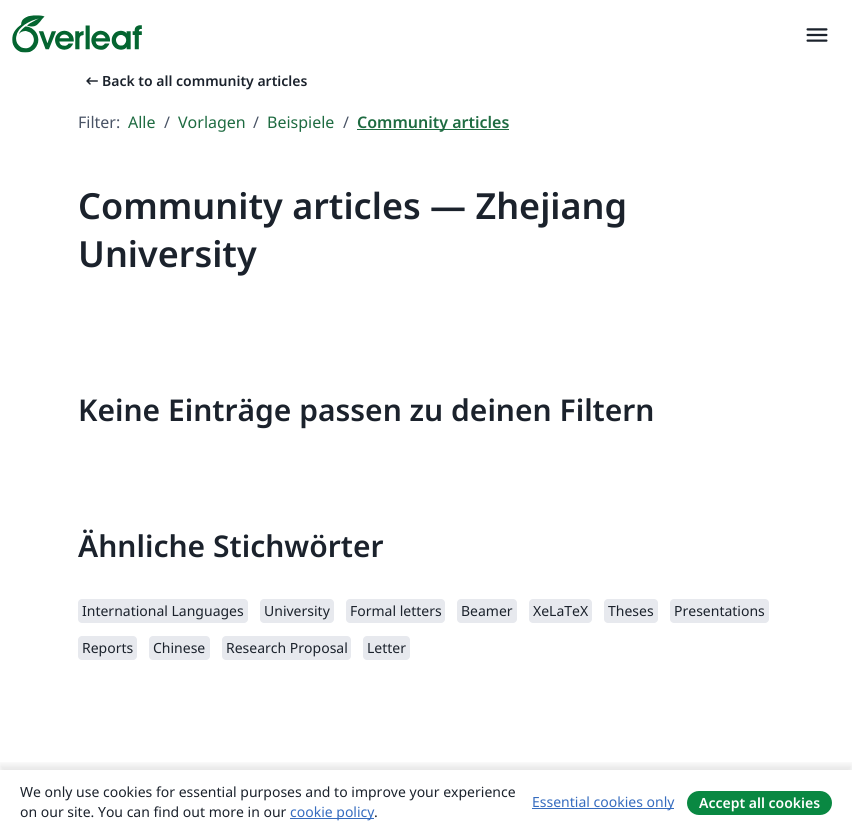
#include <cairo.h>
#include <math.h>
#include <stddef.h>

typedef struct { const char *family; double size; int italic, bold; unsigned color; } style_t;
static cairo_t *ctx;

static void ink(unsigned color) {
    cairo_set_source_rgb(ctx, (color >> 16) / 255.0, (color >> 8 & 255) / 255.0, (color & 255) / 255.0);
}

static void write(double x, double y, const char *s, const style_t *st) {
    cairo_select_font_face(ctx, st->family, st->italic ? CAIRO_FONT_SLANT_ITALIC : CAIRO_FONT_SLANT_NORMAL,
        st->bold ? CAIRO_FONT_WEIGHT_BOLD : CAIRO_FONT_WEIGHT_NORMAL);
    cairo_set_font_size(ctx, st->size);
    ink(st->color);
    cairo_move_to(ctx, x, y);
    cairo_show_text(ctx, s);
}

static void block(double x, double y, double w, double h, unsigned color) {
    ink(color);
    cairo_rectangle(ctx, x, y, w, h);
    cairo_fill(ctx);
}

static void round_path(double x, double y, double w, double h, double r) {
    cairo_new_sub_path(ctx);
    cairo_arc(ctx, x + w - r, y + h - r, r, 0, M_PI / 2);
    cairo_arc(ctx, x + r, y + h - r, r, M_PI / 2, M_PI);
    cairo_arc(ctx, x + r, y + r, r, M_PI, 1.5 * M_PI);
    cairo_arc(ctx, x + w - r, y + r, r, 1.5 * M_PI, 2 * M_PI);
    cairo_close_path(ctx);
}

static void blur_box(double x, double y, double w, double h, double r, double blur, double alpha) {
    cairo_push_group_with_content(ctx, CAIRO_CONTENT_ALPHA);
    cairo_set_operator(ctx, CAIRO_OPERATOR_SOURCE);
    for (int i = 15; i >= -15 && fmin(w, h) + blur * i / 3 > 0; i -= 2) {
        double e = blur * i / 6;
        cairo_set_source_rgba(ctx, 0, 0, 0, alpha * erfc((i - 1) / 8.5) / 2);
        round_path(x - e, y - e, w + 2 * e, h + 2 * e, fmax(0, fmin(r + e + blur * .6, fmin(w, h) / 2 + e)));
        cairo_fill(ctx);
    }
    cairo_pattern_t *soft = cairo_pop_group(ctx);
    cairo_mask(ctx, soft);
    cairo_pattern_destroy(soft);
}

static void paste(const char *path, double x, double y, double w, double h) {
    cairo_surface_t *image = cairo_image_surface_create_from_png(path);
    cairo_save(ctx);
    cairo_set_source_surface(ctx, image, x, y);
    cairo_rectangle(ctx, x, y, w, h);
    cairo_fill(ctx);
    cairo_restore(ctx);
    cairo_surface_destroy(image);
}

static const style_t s1 = {"Noto Sans SemiBold", 14, 0, 0, 0x1b222c};
static const style_t s2 = {"Noto Sans", 16, 0, 0, 0x495365};
static const style_t s3 = {"Noto Sans", 16, 0, 0, 0x1e6b41};
static const style_t s4 = {"Noto Sans SemiBold", 16, 0, 0, 0x1e6b41};
static const style_t s5 = {"Noto Sans SemiBold", 36, 0, 0, 0x1b222c};
static const style_t s6 = {"Noto Sans SemiBold", 30, 0, 0, 0x1b222c};
static const style_t s7 = {"Noto Sans", 14, 0, 0, 0x1b222c};
static const style_t s8 = {"Noto Sans", 14, 0, 0, 0x366cbf};
static const style_t s9 = {"Noto Sans SemiBold", 14, 0, 0, 0xffffff};

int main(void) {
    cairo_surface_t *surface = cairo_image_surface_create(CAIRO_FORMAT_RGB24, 852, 834);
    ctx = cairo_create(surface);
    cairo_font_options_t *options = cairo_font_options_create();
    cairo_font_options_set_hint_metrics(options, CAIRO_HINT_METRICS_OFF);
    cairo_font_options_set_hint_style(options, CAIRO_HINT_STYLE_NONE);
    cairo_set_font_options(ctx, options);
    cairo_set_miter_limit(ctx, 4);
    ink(0xffffff);
    cairo_paint(ctx);
    paste("pic1.png", 12, 15, 130, 38);
    paste("pic2.png", 806, 28, 22, 14);
    paste("pic3.png", 86, 77, 12, 8);
    write(102, 86, "Back to all community articles", &s1);
    write(78, 128, "Filter:", &s2);
    write(128, 128, "Alle", &s3);
    write(164, 128, "/", &s2);
    write(178, 128, "Vorlagen", &s3);
    write(253, 128, "/", &s2);
    write(267, 128, "Beispiele", &s3);
    write(343, 128, "/", &s2);
    block(357, 129, 152, 1, 0x1e6b41);
    write(357, 128, "Community articles", &s4);
    write(78, 219, "Community articles — Zhejiang", &s5);
    write(78, 267, "University", &s5);
    write(78, 421, "Keine Einträge passen zu deinen Filtern", &s6);
    write(78, 557, "Ähnliche Stichwörter", &s6);
    ink(0xe7e9ee);
    round_path(78, 599, 170, 24, 4);
    cairo_fill(ctx);
    write(82, 616, "International Languages", &s7);
    ink(0xe7e9ee);
    round_path(260, 599, 74, 24, 4);
    cairo_fill(ctx);
    write(264, 616, "University", &s7);
    ink(0xe7e9ee);
    round_path(346, 599, 99, 24, 4);
    cairo_fill(ctx);
    write(350, 616, "Formal letters", &s7);
    ink(0xe7e9ee);
    round_path(457, 599, 60, 24, 4);
    cairo_fill(ctx);
    write(461, 616, "Beamer", &s7);
    ink(0xe7e9ee);
    round_path(529, 599, 63, 24, 4);
    cairo_fill(ctx);
    write(533, 616, "XeLaTeX", &s7);
    ink(0xe7e9ee);
    round_path(604, 599, 54, 24, 4);
    cairo_fill(ctx);
    write(608, 616, "Theses", &s7);
    ink(0xe7e9ee);
    round_path(670, 599, 99, 24, 4);
    cairo_fill(ctx);
    write(674, 616, "Presentations", &s7);
    ink(0xe7e9ee);
    round_path(78, 636, 59, 24, 4);
    cairo_fill(ctx);
    write(82, 653, "Reports", &s7);
    ink(0xe7e9ee);
    round_path(149, 636, 61, 24, 4);
    cairo_fill(ctx);
    write(153, 653, "Chinese", &s7);
    ink(0xe7e9ee);
    round_path(222, 636, 129, 24, 4);
    cairo_fill(ctx);
    write(226, 653, "Research Proposal", &s7);
    ink(0xe7e9ee);
    round_path(363, 636, 47, 24, 4);
    cairo_fill(ctx);
    write(367, 653, "Letter", &s7);
    cairo_save(ctx);
    cairo_rectangle(ctx, 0, 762, 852, 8);
    cairo_clip(ctx);
    ink(0x000000);
    blur_box(0, 765, 852, 64, 0, 4, 0.1);
    cairo_restore(ctx);
    write(20, 797, "We only use cookies for essential purposes and to improve your experience", &s7);
    write(20, 817, "on our site. You can find out more in our", &s7);
    block(290, 818, 84, 1, 0x366cbf);
    write(290, 817, "cookie policy", &s8);
    write(374, 817, ".", &s7);
    block(532, 808, 142, 1, 0x366cbf);
    write(532, 807, "Essential cookies only", &s8);
    ink(0x098842);
    round_path(687, 791, 145, 24, 12);
    cairo_fill(ctx);
    write(699, 808, "Accept all cookies", &s9);
    cairo_surface_write_to_png(surface, "screenshot.png");
    cairo_font_options_destroy(options);
    cairo_destroy(ctx);
    cairo_surface_destroy(surface);
    return 0;
}
